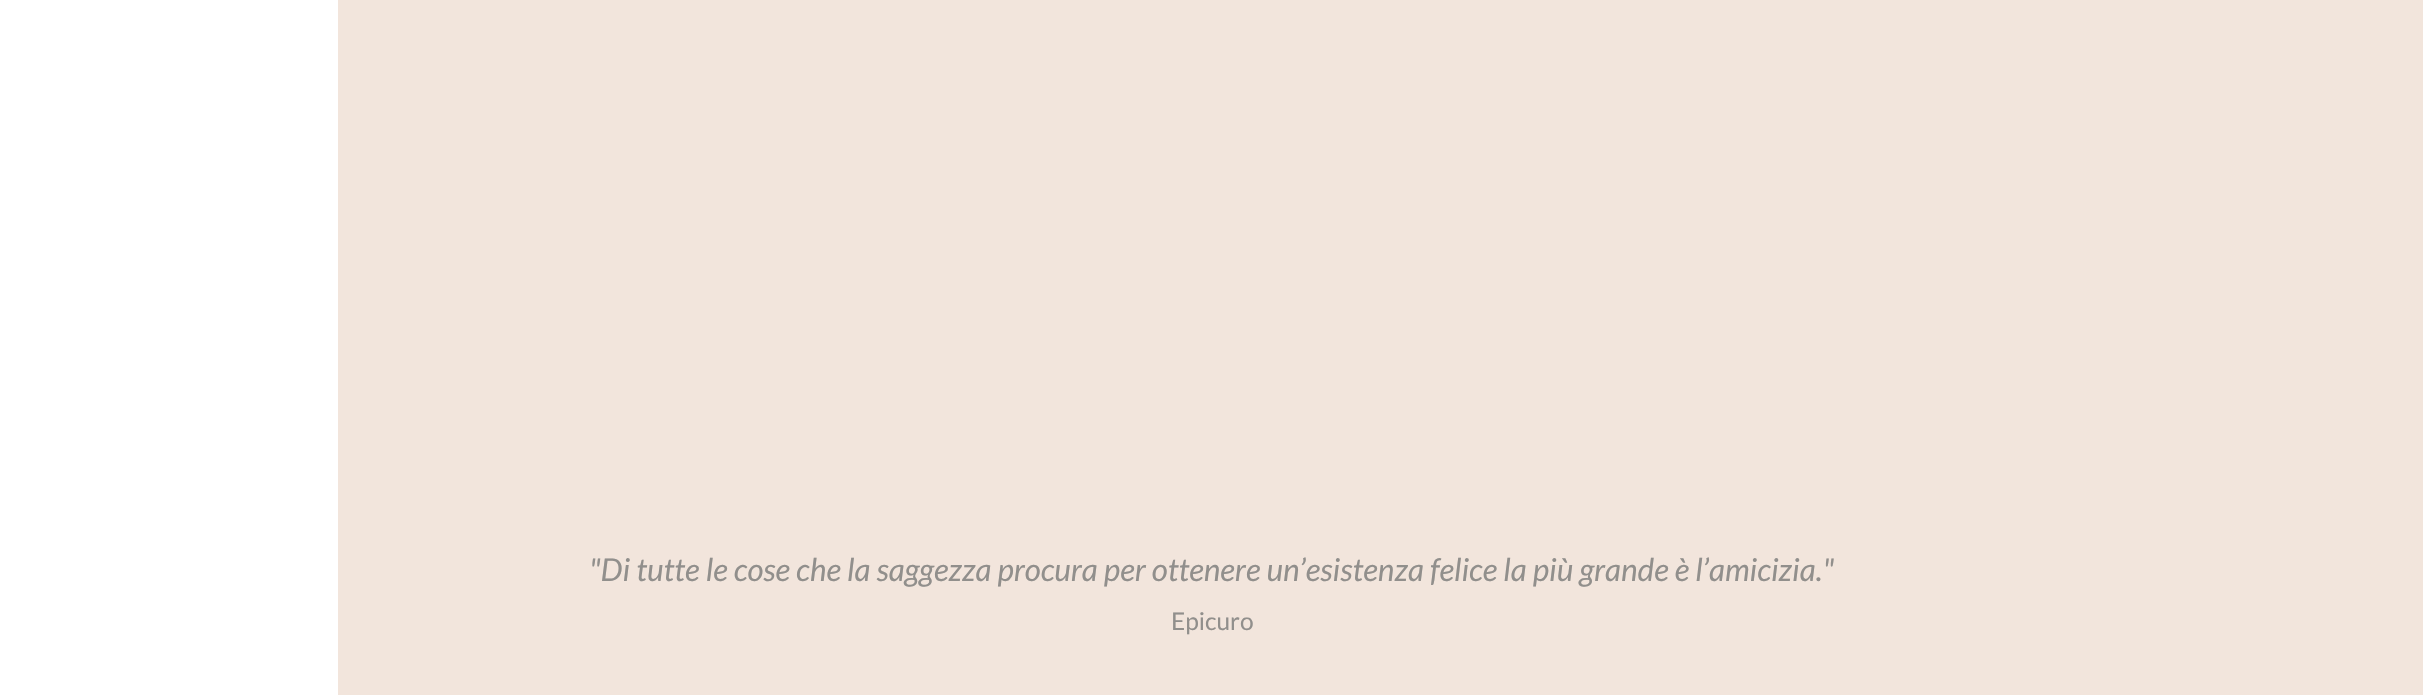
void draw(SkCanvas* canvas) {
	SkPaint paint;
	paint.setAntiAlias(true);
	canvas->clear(0xffffffff);
	paint.setColor(0xfff2e5dc);
	canvas->drawRect(SkRect::MakeXYWH(338, 0, 2085, 695), paint);
	SkFont f1(fontMgr->matchFamilyStyle("Lato", SkFontStyle::Italic()), 31.5);
	f1.setSubpixel(true);
	paint.setColor(0xff918f8c);
	canvas->drawString("\"Di tutte le cose che la saggezza procura per ottenere un’esistenza felice la più grande è l’amicizia.\"", 589, 581, f1, paint);
	SkFont f2(fontMgr->matchFamilyStyle("Lato", SkFontStyle::Normal()), 24.5);
	f2.setSubpixel(true);
	canvas->drawString("Epicuro", 1171, 630, f2, paint);
}
